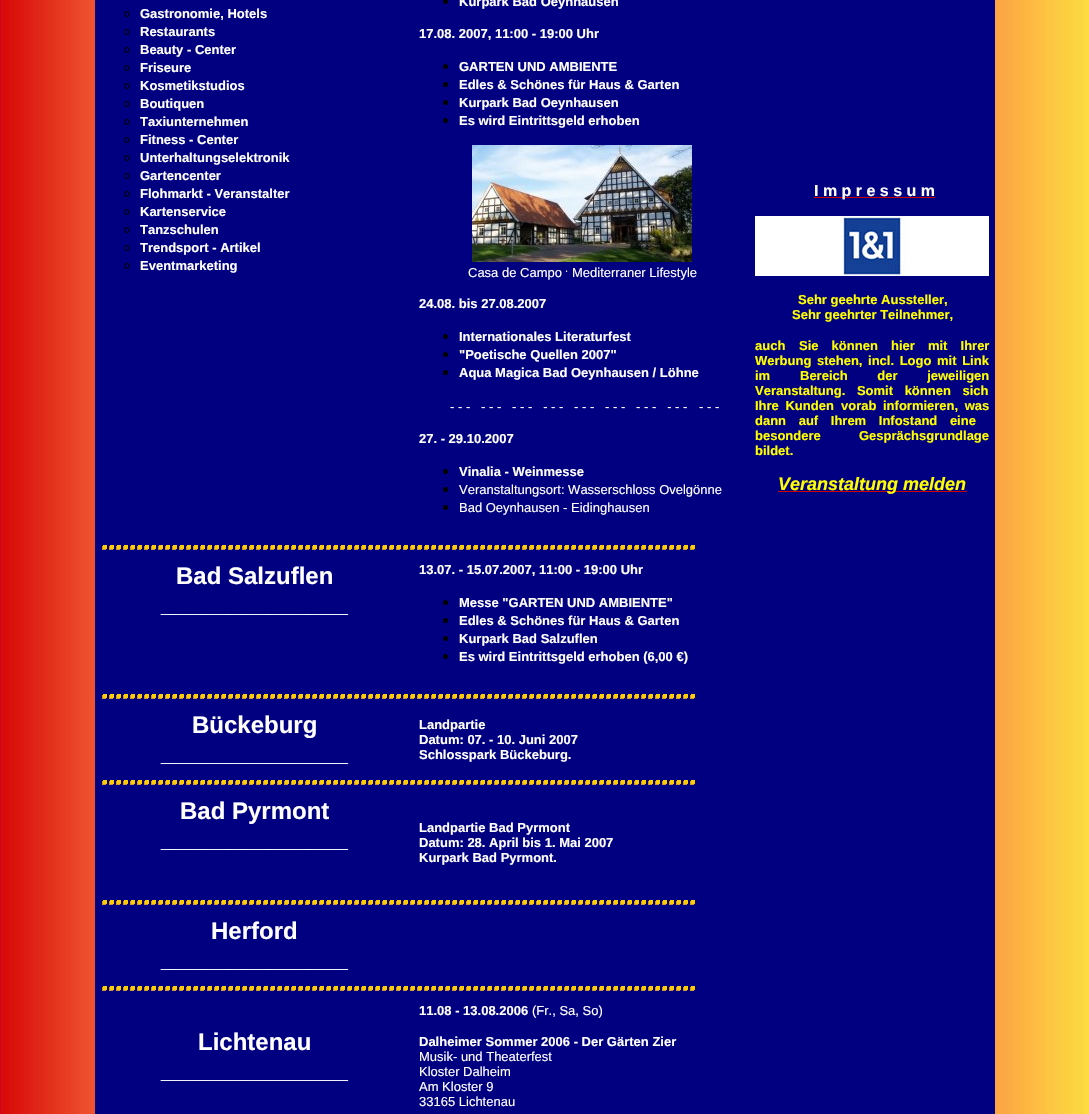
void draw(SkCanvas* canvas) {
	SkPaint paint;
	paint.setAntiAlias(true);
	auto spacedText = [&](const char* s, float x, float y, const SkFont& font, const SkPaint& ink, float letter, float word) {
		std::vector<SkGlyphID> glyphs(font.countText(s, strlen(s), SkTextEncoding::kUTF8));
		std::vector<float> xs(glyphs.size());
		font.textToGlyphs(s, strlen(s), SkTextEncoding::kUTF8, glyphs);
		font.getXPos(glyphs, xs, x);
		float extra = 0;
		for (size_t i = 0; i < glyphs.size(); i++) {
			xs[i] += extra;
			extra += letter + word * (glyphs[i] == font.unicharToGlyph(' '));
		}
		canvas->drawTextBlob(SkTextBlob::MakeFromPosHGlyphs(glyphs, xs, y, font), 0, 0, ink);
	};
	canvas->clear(0xffffffff);
	canvas->drawImageRect(SkImages::DeferredFromEncodedData(SkData::MakeFromFileName("img1.png")), SkRect::MakeXYWH(0, 0, 1089, 1114), SkSamplingOptions());
	paint.setColor(0xff000080);
	canvas->drawRect(SkRect::MakeXYWH(95, 0, 900, 1114), paint);
	paint.setStroke(true);
	paint.setStrokeWidth(1);
	paint.setColor(0xff000000);
	canvas->drawCircle(127, 14, 2.5, paint);
	SkFont f1(fontMgr->matchFamilyStyle("Liberation Sans", SkFontStyle::Bold()), 13);
	f1.setSubpixel(true);
	paint.setStroke(false);
	paint.setColor(0xffffffff);
	canvas->drawString("Gastronomie, Hotels", 140, 18, f1, paint);
	paint.setStroke(true);
	paint.setColor(0xff000000);
	canvas->drawCircle(127, 32, 2.5, paint);
	paint.setStroke(false);
	paint.setColor(0xffffffff);
	canvas->drawString("Restaurants", 140, 36, f1, paint);
	paint.setStroke(true);
	paint.setColor(0xff000000);
	canvas->drawCircle(127, 50, 2.5, paint);
	paint.setStroke(false);
	paint.setColor(0xffffffff);
	canvas->drawString("Beauty - Center", 140, 54, f1, paint);
	paint.setStroke(true);
	paint.setColor(0xff000000);
	canvas->drawCircle(127, 68, 2.5, paint);
	paint.setStroke(false);
	paint.setColor(0xffffffff);
	canvas->drawString("Friseure", 140, 72, f1, paint);
	paint.setStroke(true);
	paint.setColor(0xff000000);
	canvas->drawCircle(127, 86, 2.5, paint);
	paint.setStroke(false);
	paint.setColor(0xffffffff);
	canvas->drawString("Kosmetikstudios", 140, 90, f1, paint);
	paint.setStroke(true);
	paint.setColor(0xff000000);
	canvas->drawCircle(127, 104, 2.5, paint);
	paint.setStroke(false);
	paint.setColor(0xffffffff);
	canvas->drawString("Boutiquen", 140, 108, f1, paint);
	paint.setStroke(true);
	paint.setColor(0xff000000);
	canvas->drawCircle(127, 122, 2.5, paint);
	paint.setStroke(false);
	paint.setColor(0xffffffff);
	canvas->drawString("Taxiunternehmen", 140, 126, f1, paint);
	paint.setStroke(true);
	paint.setColor(0xff000000);
	canvas->drawCircle(127, 140, 2.5, paint);
	paint.setStroke(false);
	paint.setColor(0xffffffff);
	canvas->drawString("Fitness - Center", 140, 144, f1, paint);
	paint.setStroke(true);
	paint.setColor(0xff000000);
	canvas->drawCircle(127, 158, 2.5, paint);
	paint.setStroke(false);
	paint.setColor(0xffffffff);
	canvas->drawString("Unterhaltungselektronik", 140, 162, f1, paint);
	paint.setStroke(true);
	paint.setColor(0xff000000);
	canvas->drawCircle(127, 176, 2.5, paint);
	paint.setStroke(false);
	paint.setColor(0xffffffff);
	canvas->drawString("Gartencenter", 140, 180, f1, paint);
	paint.setStroke(true);
	paint.setColor(0xff000000);
	canvas->drawCircle(127, 194, 2.5, paint);
	paint.setStroke(false);
	paint.setColor(0xffffffff);
	canvas->drawString("Flohmarkt - Veranstalter", 140, 198, f1, paint);
	paint.setStroke(true);
	paint.setColor(0xff000000);
	canvas->drawCircle(127, 212, 2.5, paint);
	paint.setStroke(false);
	paint.setColor(0xffffffff);
	canvas->drawString("Kartenservice", 140, 216, f1, paint);
	paint.setStroke(true);
	paint.setColor(0xff000000);
	canvas->drawCircle(127, 230, 2.5, paint);
	paint.setStroke(false);
	paint.setColor(0xffffffff);
	canvas->drawString("Tanzschulen", 140, 234, f1, paint);
	paint.setStroke(true);
	paint.setColor(0xff000000);
	canvas->drawCircle(127, 248, 2.5, paint);
	paint.setStroke(false);
	paint.setColor(0xffffffff);
	canvas->drawString("Trendsport - Artikel", 140, 252, f1, paint);
	paint.setStroke(true);
	paint.setColor(0xff000000);
	canvas->drawCircle(127, 266, 2.5, paint);
	paint.setStroke(false);
	paint.setColor(0xffffffff);
	canvas->drawString("Eventmarketing", 140, 270, f1, paint);
	paint.setColor(0xff000000);
	canvas->drawCircle(445.5, 1.5, 2.5, paint);
	paint.setColor(0xffffffff);
	canvas->drawString("Kurpark Bad Oeynhausen", 459, 6, f1, paint);
	canvas->drawString("17.08. 2007, 11:00 - 19:00 Uhr", 419, 38, f1, paint);
	paint.setColor(0xff000000);
	canvas->drawCircle(445.5, 66.5, 2.5, paint);
	paint.setColor(0xffffffff);
	canvas->drawString("GARTEN UND AMBIENTE", 459, 71, f1, paint);
	paint.setColor(0xff000000);
	canvas->drawCircle(445.5, 84.5, 2.5, paint);
	paint.setColor(0xffffffff);
	canvas->drawString("Edles & Schönes für Haus & Garten", 459, 89, f1, paint);
	paint.setColor(0xff000000);
	canvas->drawCircle(445.5, 102.5, 2.5, paint);
	paint.setColor(0xffffffff);
	canvas->drawString("Kurpark Bad Oeynhausen", 459, 107, f1, paint);
	paint.setColor(0xff000000);
	canvas->drawCircle(445.5, 120.5, 2.5, paint);
	paint.setColor(0xffffffff);
	canvas->drawString("Es wird Eintrittsgeld erhoben", 459, 125, f1, paint);
	canvas->drawImageRect(SkImages::DeferredFromEncodedData(SkData::MakeFromFileName("img2.png")), SkRect::MakeXYWH(472, 145, 220, 117), SkSamplingOptions());
	SkFont f2(fontMgr->matchFamilyStyle("Liberation Sans", SkFontStyle::Normal()), 13);
	f2.setSubpixel(true);
	canvas->drawString("Casa de Campo", 468, 277, f2, paint);
	SkFont f3(fontMgr->matchFamilyStyle("Liberation Sans", SkFontStyle::Normal()), 11);
	f3.setSubpixel(true);
	canvas->drawString(".", 565, 272, f3, paint);
	canvas->drawString("Mediterraner Lifestyle", 572, 277, f2, paint);
	canvas->drawString("24.08. bis 27.08.2007", 419, 308, f1, paint);
	paint.setColor(0xff000000);
	canvas->drawCircle(445.5, 336.5, 2.5, paint);
	paint.setColor(0xffffffff);
	canvas->drawString("Internationales Literaturfest", 459, 341, f1, paint);
	paint.setColor(0xff000000);
	canvas->drawCircle(445.5, 354.5, 2.5, paint);
	paint.setColor(0xffffffff);
	canvas->drawString("\"Poetische Quellen 2007\"", 459, 359, f1, paint);
	paint.setColor(0xff000000);
	canvas->drawCircle(445.5, 372.5, 2.5, paint);
	paint.setColor(0xffffffff);
	canvas->drawString("Aqua Magica Bad Oeynhausen / Löhne", 459, 377, f1, paint);
	canvas->drawString("- - -   - - -   - - -   - - -", 450, 411, f2, paint);
	canvas->drawString("- - -   - - -   - - -   - - -", 574, 411, f2, paint);
	canvas->drawString("- - -", 699, 411, f2, paint);
	canvas->drawString("27. - 29.10.2007", 419, 443, f1, paint);
	paint.setColor(0xff000000);
	canvas->drawCircle(445.5, 471.5, 2.5, paint);
	paint.setColor(0xffffffff);
	canvas->drawString("Vinalia - Weinmesse", 459, 476, f1, paint);
	paint.setColor(0xff000000);
	canvas->drawCircle(445.5, 489.5, 2.5, paint);
	paint.setColor(0xffffffff);
	canvas->drawString("Veranstaltungsort: Wasserschloss Ovelgönne", 459, 494, f2, paint);
	paint.setColor(0xff000000);
	canvas->drawCircle(445.5, 507.5, 2.5, paint);
	paint.setColor(0xffffffff);
	canvas->drawString("Bad Oeynhausen - Eidinghausen", 459, 512, f2, paint);
	paint.setColor(0xffcc0000);
	canvas->drawRect(SkRect::MakeXYWH(814, 197, 121, 1), paint);
	SkFont f4(fontMgr->matchFamilyStyle("Liberation Sans", SkFontStyle::Bold()), 16);
	f4.setSubpixel(true);
	paint.setColor(0xffffffff);
	canvas->drawString("I m p r e s s u m", 814, 196, f4, paint);
	canvas->drawImageRect(SkImages::DeferredFromEncodedData(SkData::MakeFromFileName("img3.png")), SkRect::MakeXYWH(755, 216, 234, 60), SkSamplingOptions());
	paint.setColor(0xffffff00);
	canvas->drawString("Sehr geehrte Aussteller,", 798, 304, f1, paint);
	canvas->drawString("Sehr geehrter Teilnehmer,", 792, 319, f1, paint);
	canvas->drawString("auch", 755, 350, f1, paint);
	spacedText("Sie können hier mit Ihrer", 799, 350, f1, paint, 0, 9.5);
	spacedText("Werbung stehen, incl. Logo mit Link", 755, 365, f1, paint, 0, 2);
	canvas->drawString("im", 755, 380, f1, paint);
	spacedText("Bereich der jeweiligen", 800, 380, f1, paint, 0, 26);
	spacedText("Veranstaltung. Somit können sich", 755, 395, f1, paint, 0, 8);
	spacedText("Ihre Kunden", 755, 410, f1, paint, 0, 3);
	spacedText("vorab informieren, was", 841, 410, f1, paint, 0, 3);
	spacedText("dann auf Ihrem Infostand eine", 755, 425, f1, paint, 0, 9);
	canvas->drawString("besondere", 755, 440, f1, paint);
	canvas->drawString("Gesprächsgrundlage", 859, 440, f1, paint);
	canvas->drawString("bildet.", 755, 455, f1, paint);
	paint.setColor(0xffcc0000);
	canvas->drawRect(SkRect::MakeXYWH(778, 491, 189, 1), paint);
	SkFont f5(fontMgr->matchFamilyStyle("Liberation Sans", SkFontStyle::BoldItalic()), 18);
	f5.setSubpixel(true);
	paint.setColor(0xffffff00);
	canvas->drawString("Veranstaltung melden", 778, 490, f5, paint);
	canvas->drawImageRect(SkImages::DeferredFromEncodedData(SkData::MakeFromFileName("img4.png")), SkRect::MakeXYWH(102, 545, 593, 5), SkSamplingOptions());
	SkFont f6(fontMgr->matchFamilyStyle("Liberation Sans", SkFontStyle::Bold()), 24);
	f6.setSubpixel(true);
	paint.setColor(0xffffffff);
	canvas->drawString("Bad Salzuflen", 176, 584, f6, paint);
	canvas->drawString("______________", 161, 612, f6, paint);
	canvas->drawString("13.07. - 15.07.2007, 11:00 - 19:00 Uhr", 419, 574, f1, paint);
	paint.setColor(0xff000000);
	canvas->drawCircle(445.5, 602.5, 2.5, paint);
	paint.setColor(0xffffffff);
	canvas->drawString("Messe \"GARTEN UND AMBIENTE\"", 459, 607, f1, paint);
	paint.setColor(0xff000000);
	canvas->drawCircle(445.5, 620.5, 2.5, paint);
	paint.setColor(0xffffffff);
	canvas->drawString("Edles & Schönes für Haus & Garten", 459, 625, f1, paint);
	paint.setColor(0xff000000);
	canvas->drawCircle(445.5, 638.5, 2.5, paint);
	paint.setColor(0xffffffff);
	canvas->drawString("Kurpark Bad Salzuflen", 459, 643, f1, paint);
	paint.setColor(0xff000000);
	canvas->drawCircle(445.5, 656.5, 2.5, paint);
	paint.setColor(0xffffffff);
	canvas->drawString("Es wird Eintrittsgeld erhoben (6,00 €)", 459, 661, f1, paint);
	canvas->drawImageRect(SkImages::DeferredFromEncodedData(SkData::MakeFromFileName("img4.png")), SkRect::MakeXYWH(102, 694, 593, 5), SkSamplingOptions());
	canvas->drawString("Bückeburg", 192, 733, f6, paint);
	canvas->drawString("______________", 161, 761, f6, paint);
	canvas->drawString("Landpartie", 419, 729, f1, paint);
	canvas->drawString("Datum: 07. - 10. Juni 2007", 419, 744, f1, paint);
	canvas->drawString("Schlosspark Bückeburg.", 419, 759, f1, paint);
	canvas->drawImageRect(SkImages::DeferredFromEncodedData(SkData::MakeFromFileName("img4.png")), SkRect::MakeXYWH(102, 780, 593, 5), SkSamplingOptions());
	canvas->drawString("Bad Pyrmont", 180, 819, f6, paint);
	canvas->drawString("______________", 161, 847, f6, paint);
	canvas->drawString("Landpartie Bad Pyrmont", 419, 832, f1, paint);
	canvas->drawString("Datum: 28. April bis 1. Mai 2007", 419, 847, f1, paint);
	canvas->drawString("Kurpark Bad Pyrmont.", 419, 862, f1, paint);
	canvas->drawImageRect(SkImages::DeferredFromEncodedData(SkData::MakeFromFileName("img4.png")), SkRect::MakeXYWH(102, 900, 593, 5), SkSamplingOptions());
	canvas->drawString("Herford", 211, 939, f6, paint);
	canvas->drawString("______________", 161, 967, f6, paint);
	canvas->drawImageRect(SkImages::DeferredFromEncodedData(SkData::MakeFromFileName("img4.png")), SkRect::MakeXYWH(102, 986, 593, 5), SkSamplingOptions());
	canvas->drawString("Lichtenau", 198, 1050, f6, paint);
	canvas->drawString("______________", 161, 1078, f6, paint);
	canvas->drawString("11.08 - 13.08.2006", 419, 1015, f1, paint);
	canvas->drawString("(Fr., Sa, So)", 532, 1015, f2, paint);
	canvas->drawString("Dalheimer Sommer 2006 - Der Gärten Zier", 419, 1046, f1, paint);
	canvas->drawString("Musik- und Theaterfest", 419, 1061, f2, paint);
	canvas->drawString("Kloster Dalheim", 419, 1076, f2, paint);
	canvas->drawString("Am Kloster 9", 419, 1091, f2, paint);
	canvas->drawString("33165 Lichtenau", 419, 1106, f2, paint);
}
